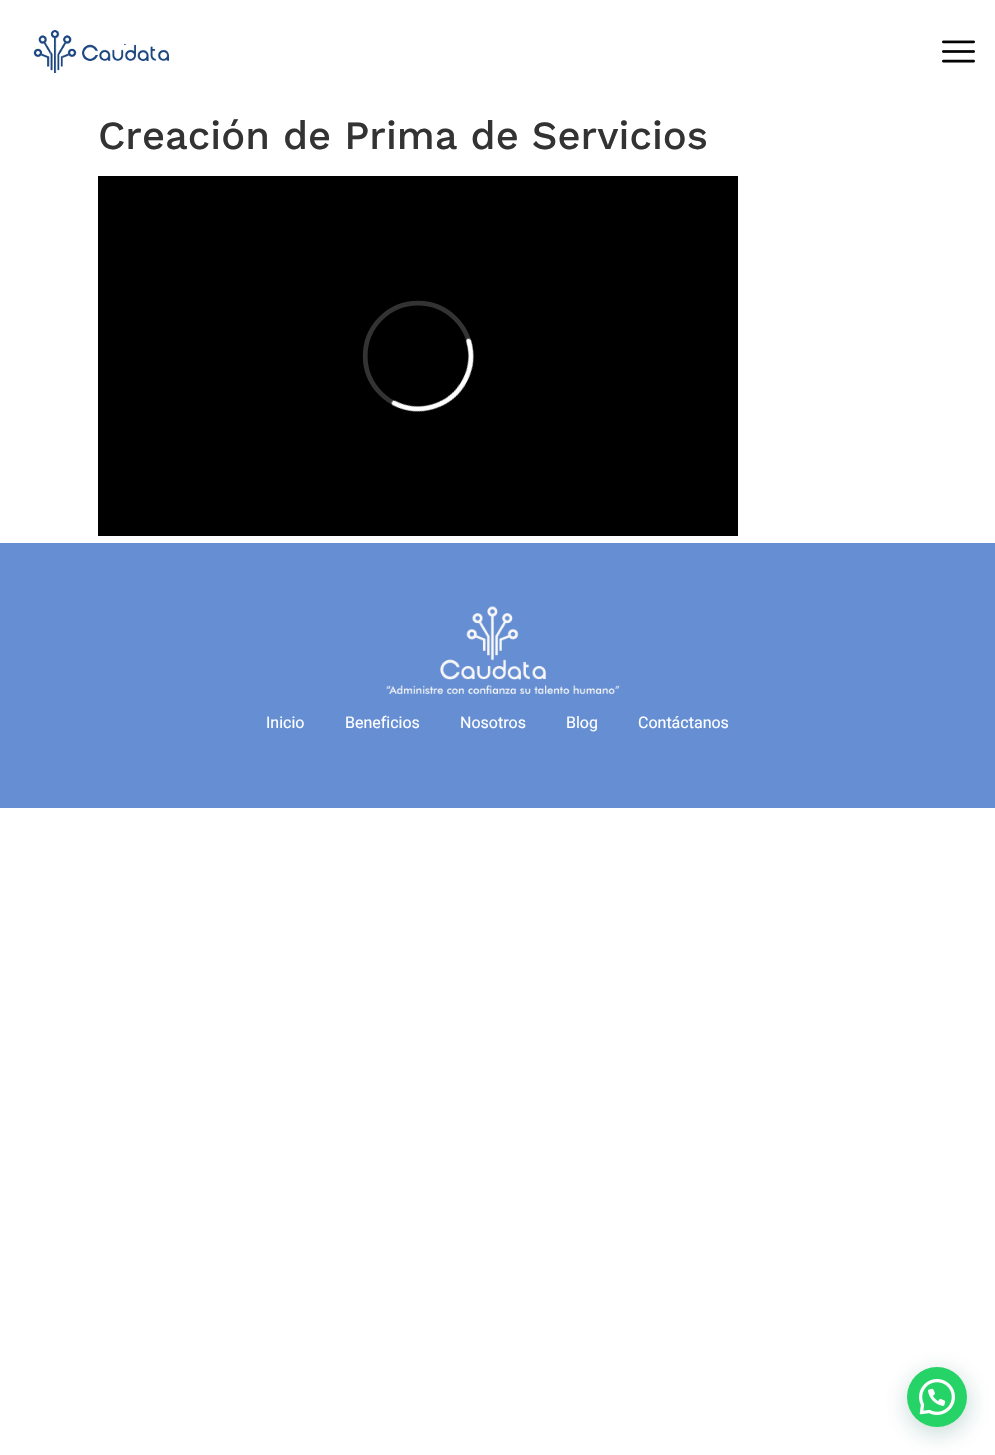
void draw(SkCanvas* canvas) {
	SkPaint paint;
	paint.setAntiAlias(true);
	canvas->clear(0xffffffff);
	canvas->drawImageRect(SkImages::DeferredFromEncodedData(SkData::MakeFromFileName("img1.png")), SkRect::MakeXYWH(33, 30, 136, 43), SkSamplingOptions());
	canvas->drawImageRect(SkImages::DeferredFromEncodedData(SkData::MakeFromFileName("img2.png")), SkRect::MakeXYWH(942, 40, 33, 23), SkSamplingOptions());
	SkFont f1(fontMgr->matchFamilyStyle("Work Sans", SkFontStyle(500, SkFontStyle::kNormal_Width, SkFontStyle::kUpright_Slant)), 40);
	f1.setSubpixel(true);
	paint.setColor(0xff333333);
	canvas->drawString("Creación de Prima de Servicios", 98, 149, f1, paint);
	canvas->drawImageRect(SkImages::DeferredFromEncodedData(SkData::MakeFromFileName("img3.png")), SkRect::MakeXYWH(98, 176, 640, 360), SkSamplingOptions());
	paint.setColor(0xff668ed2);
	canvas->drawRect(SkRect::MakeXYWH(0, 543, 995, 265), paint);
	canvas->drawImageRect(SkImages::DeferredFromEncodedData(SkData::MakeFromFileName("img4.png")), SkRect::MakeXYWH(386, 606, 234, 88), SkSamplingOptions());
	SkFont f2(fontMgr->matchFamilyStyle("Roboto", SkFontStyle::Normal()), 16);
	f2.setSubpixel(true);
	paint.setColor(0xffffffff);
	canvas->drawString("Inicio", 266, 728, f2, paint);
	canvas->drawString("Beneficios", 345, 728, f2, paint);
	canvas->drawString("Nosotros", 460, 728, f2, paint);
	canvas->drawString("Blog", 566, 728, f2, paint);
	canvas->drawString("Contáctanos", 638, 728, f2, paint);
	paint.setColor(0x3d075e54);
	paint.setMaskFilter(SkMaskFilter::MakeBlur(kNormal_SkBlurStyle, 12));
	canvas->drawRoundRect(SkRect::MakeXYWH(908, 1373, 60, 60), 30, 30, paint);
	paint.setMaskFilter(nullptr);
	paint.setColor(0xff25d366);
	canvas->drawCircle(937, 1397, 30, paint);
	canvas->drawImageRect(SkImages::DeferredFromEncodedData(SkData::MakeFromFileName("img5.png")), SkRect::MakeXYWH(919, 1379, 36, 36), SkSamplingOptions());
}
